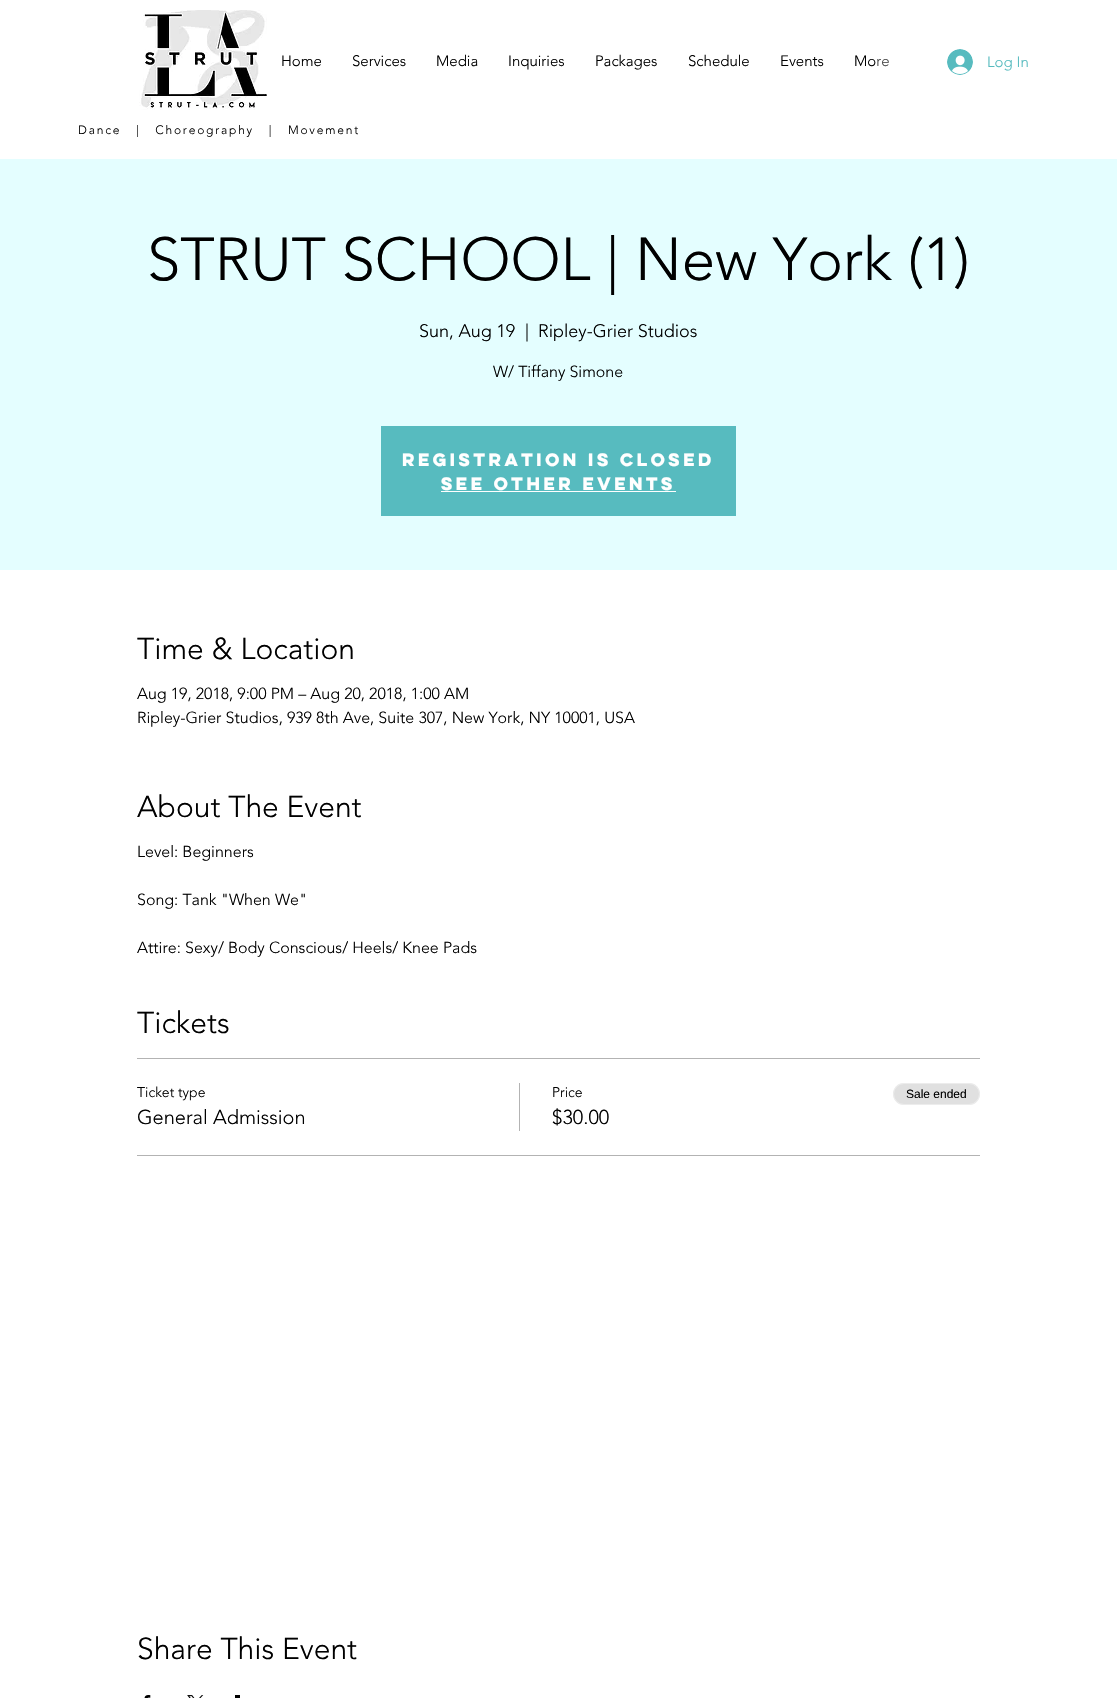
void draw(SkCanvas* canvas) {
	SkPaint paint;
	paint.setAntiAlias(true);
	auto spacedText = [&](const char* s, float x, float y, const SkFont& font, const SkPaint& ink, float letter, float word) {
		std::vector<SkGlyphID> glyphs(font.countText(s, strlen(s), SkTextEncoding::kUTF8));
		std::vector<float> xs(glyphs.size());
		font.textToGlyphs(s, strlen(s), SkTextEncoding::kUTF8, glyphs);
		font.getXPos(glyphs, xs, x);
		float extra = 0;
		for (size_t i = 0; i < glyphs.size(); i++) {
			xs[i] += extra;
			extra += letter + word * (glyphs[i] == font.unicharToGlyph(' '));
		}
		canvas->drawTextBlob(SkTextBlob::MakeFromPosHGlyphs(glyphs, xs, y, font), 0, 0, ink);
	};
	canvas->clear(0xffffffff);
	canvas->drawImageRect(SkImages::DeferredFromEncodedData(SkData::MakeFromFileName("img1.png")), SkRect::MakeXYWH(139, 10, 128, 100), SkSamplingOptions());
	SkFont f1(fontMgr->matchFamilyStyle("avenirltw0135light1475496", SkFontStyle(300, SkFontStyle::kNormal_Width, SkFontStyle::kUpright_Slant)), 15);
	f1.setSubpixel(true);
	paint.setColor(0xff000000);
	canvas->drawString("Home", 281, 66, f1, paint);
	canvas->drawString("Services", 352, 66, f1, paint);
	canvas->drawString("Media", 436, 66, f1, paint);
	canvas->drawString("Inquiries", 508, 66, f1, paint);
	canvas->drawString("Packages", 595, 66, f1, paint);
	canvas->drawString("Schedule", 688, 66, f1, paint);
	canvas->drawString("Events", 780, 66, f1, paint);
	canvas->drawString("More", 854, 66, f1, paint);
	paint.setColor(0x47ffffff);
	canvas->drawRect(SkRect::MakeXYWH(877, 58, 12, 9), paint);
	canvas->drawImageRect(SkImages::DeferredFromEncodedData(SkData::MakeFromFileName("img2.png")), SkRect::MakeXYWH(947, 49, 26, 26), SkSamplingOptions());
	paint.setColor(0xff57bbbf);
	canvas->drawString("Log In", 987, 67, f1, paint);
	SkFont f2(fontMgr->matchFamilyStyle("avenirltw0135light1475496", SkFontStyle(300, SkFontStyle::kNormal_Width, SkFontStyle::kUpright_Slant)), 12);
	f2.setSubpixel(true);
	paint.setColor(0xff000000);
	spacedText("Dance   |   Choreography   |   Movement", 78, 134, f2, paint, 1.8, 0);
	paint.setColor(0xffe4feff);
	canvas->drawRect(SkRect::MakeXYWH(0, 159, 1117, 411), paint);
	SkFont f3(fontMgr->matchFamilyStyle("avenirltw0135light1475496", SkFontStyle(300, SkFontStyle::kNormal_Width, SkFontStyle::kUpright_Slant)), 60);
	f3.setSubpixel(true);
	paint.setColor(0xff000000);
	canvas->drawString("STRUT SCHOOL | New York (1)", 147, 280, f3, paint);
	SkFont f4(fontMgr->matchFamilyStyle("avenirltw0135light1475496", SkFontStyle(300, SkFontStyle::kNormal_Width, SkFontStyle::kUpright_Slant)), 18);
	f4.setSubpixel(true);
	canvas->drawString("Sun, Aug 19", 419, 337, f4, paint);
	canvas->drawString("|", 525, 337, f4, paint);
	canvas->drawString("Ripley-Grier Studios", 538, 337, f4, paint);
	SkFont f5(fontMgr->matchFamilyStyle("avenirltw0135light1475496", SkFontStyle(300, SkFontStyle::kNormal_Width, SkFontStyle::kUpright_Slant)), 16);
	f5.setSubpixel(true);
	canvas->drawString("W/ Tiffany Simone", 493, 377, f5, paint);
	paint.setColor(0xff57bbbf);
	canvas->drawRect(SkRect::MakeXYWH(381, 426, 355, 90), paint);
	SkFont f6(fontMgr->matchFamilyStyle("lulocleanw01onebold", SkFontStyle::Bold()), 16);
	f6.setSubpixel(true);
	paint.setColor(0xffffffff);
	canvas->drawString("Registration is Closed", 402, 466, f6, paint);
	canvas->drawString("See other events", 441, 490, f6, paint);
	canvas->drawRect(SkRect::MakeXYWH(441, 491, 235, 1), paint);
	SkFont f7(fontMgr->matchFamilyStyle("avenirltw0135light1475496", SkFontStyle(300, SkFontStyle::kNormal_Width, SkFontStyle::kUpright_Slant)), 30);
	f7.setSubpixel(true);
	paint.setColor(0xff000000);
	canvas->drawString("Time & Location", 137, 659, f7, paint);
	canvas->drawString("Aug 19, 2018, 9:00 PM – Aug 20, 2018, 1:00 AM", 137, 699, f5, paint);
	canvas->drawString("Ripley-Grier Studios, 939 8th Ave, Suite 307, New York, NY 10001, USA", 137, 723, f5, paint);
	canvas->drawString("About The Event", 137, 817, f7, paint);
	canvas->drawString("Level: Beginners", 137, 857, f5, paint);
	canvas->drawString("Song: Tank \"When We\"", 137, 905, f5, paint);
	canvas->drawString("Attire: Sexy/ Body Conscious/ Heels/ Knee Pads", 137, 953, f5, paint);
	canvas->drawString("Tickets", 137, 1033, f7, paint);
	paint.setColor(0xffb3b3b3);
	canvas->drawRect(SkRect::MakeXYWH(137, 1058, 843, 1), paint);
	canvas->drawRect(SkRect::MakeXYWH(137, 1155, 843, 1), paint);
	SkFont f8(fontMgr->matchFamilyStyle("avenirltw0135light1475496", SkFontStyle(300, SkFontStyle::kNormal_Width, SkFontStyle::kUpright_Slant)), 14);
	f8.setSubpixel(true);
	paint.setColor(0xff000000);
	canvas->drawString("Ticket type", 137, 1097, f8, paint);
	SkFont f9(fontMgr->matchFamilyStyle("avenirltw0135light1475496", SkFontStyle(300, SkFontStyle::kNormal_Width, SkFontStyle::kUpright_Slant)), 20);
	f9.setSubpixel(true);
	canvas->drawString("General Admission", 137, 1124, f9, paint);
	paint.setColor(0xffb3b3b3);
	canvas->drawRect(SkRect::MakeXYWH(519, 1083, 1, 48), paint);
	paint.setColor(0xff000000);
	canvas->drawString("Price", 552, 1097, f8, paint);
	canvas->drawString("$30.00", 552, 1124, f9, paint);
	paint.setColor(0xffe0e0e0);
	canvas->drawRoundRect(SkRect::MakeXYWH(893, 1083, 87, 22), 11, 11, paint);
	paint.setStroke(true);
	paint.setStrokeWidth(1);
	paint.setColor(0x66ffffff);
	canvas->drawRoundRect(SkRect::MakeXYWH(893.5, 1083.5, 86, 21), 10.5, 10.5, paint);
	SkFont f10(fontMgr->matchFamilyStyle("Liberation Sans", SkFontStyle::Normal()), 12);
	f10.setSubpixel(true);
	paint.setStroke(false);
	paint.setColor(0xff000000);
	canvas->drawString("Sale ended", 906, 1098, f10, paint);
	canvas->drawString("Share This Event", 137, 1659, f7, paint);
	canvas->drawImageRect(SkImages::DeferredFromEncodedData(SkData::MakeFromFileName("img3.png")), SkRect::MakeXYWH(144, 1695, 7, 3), SkSamplingOptions());
	canvas->drawImageRect(SkImages::DeferredFromEncodedData(SkData::MakeFromFileName("img4.png")), SkRect::MakeXYWH(187, 1695, 17, 3), SkSamplingOptions());
	canvas->drawRect(SkRect::MakeXYWH(235, 1695, 5, 3), paint);
}
